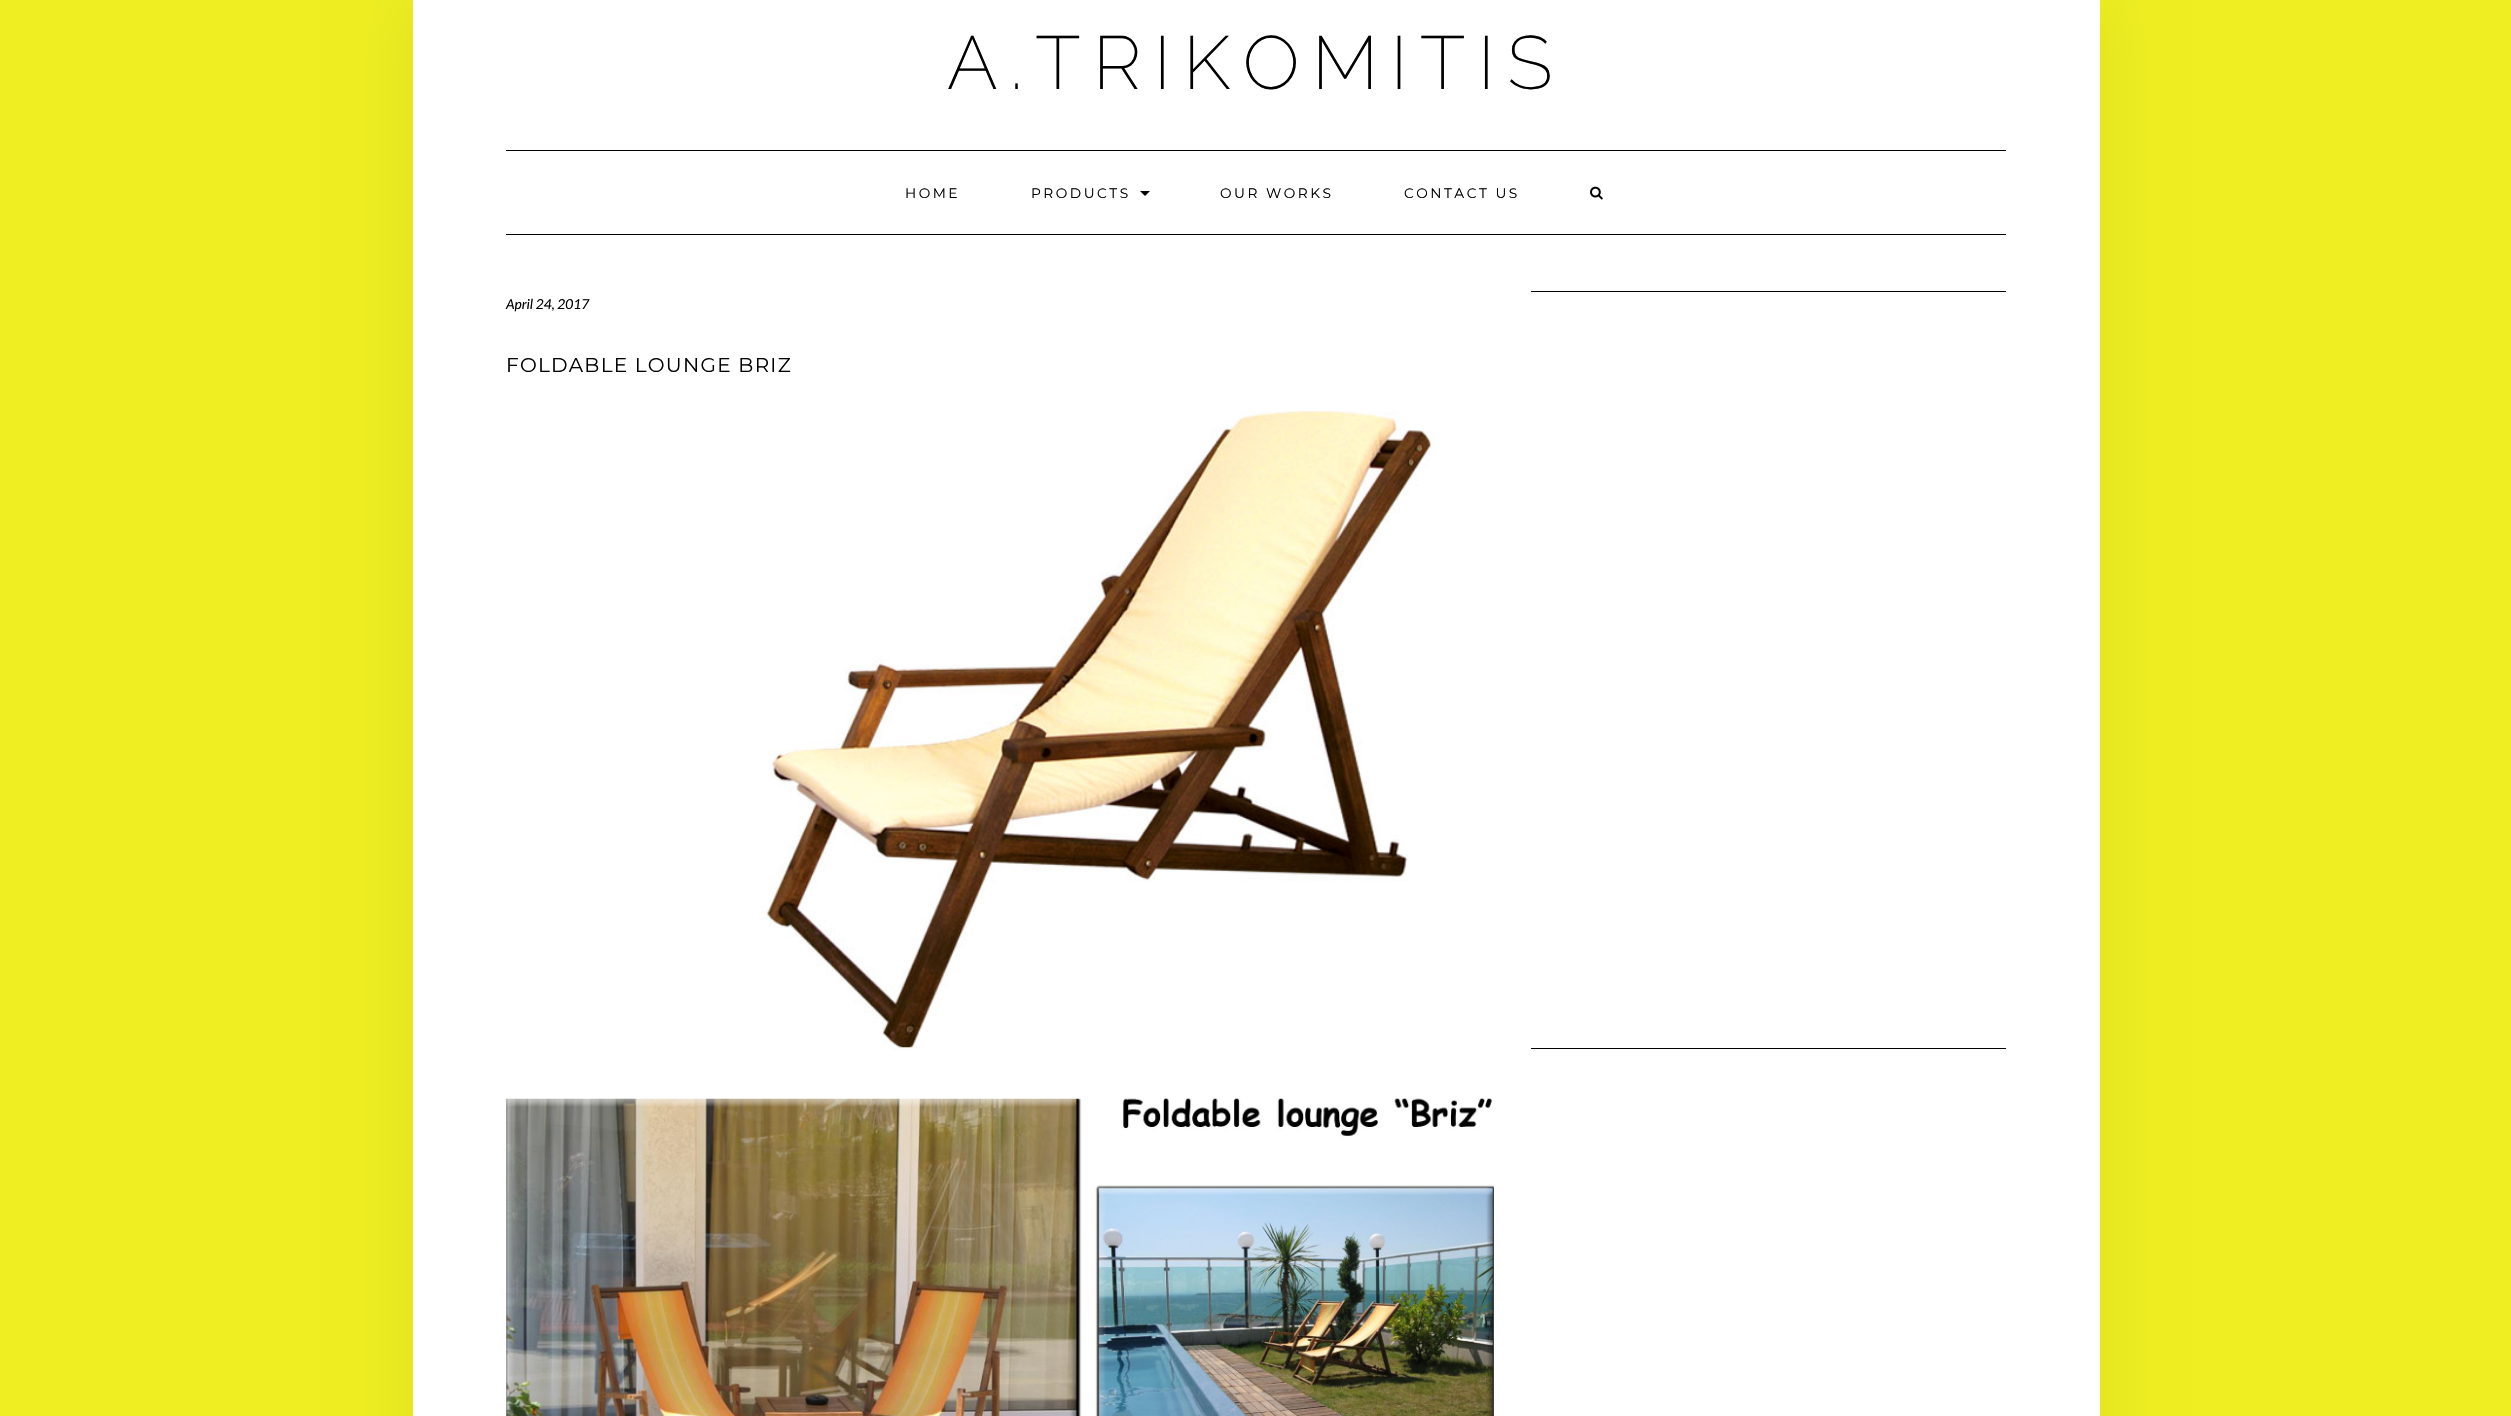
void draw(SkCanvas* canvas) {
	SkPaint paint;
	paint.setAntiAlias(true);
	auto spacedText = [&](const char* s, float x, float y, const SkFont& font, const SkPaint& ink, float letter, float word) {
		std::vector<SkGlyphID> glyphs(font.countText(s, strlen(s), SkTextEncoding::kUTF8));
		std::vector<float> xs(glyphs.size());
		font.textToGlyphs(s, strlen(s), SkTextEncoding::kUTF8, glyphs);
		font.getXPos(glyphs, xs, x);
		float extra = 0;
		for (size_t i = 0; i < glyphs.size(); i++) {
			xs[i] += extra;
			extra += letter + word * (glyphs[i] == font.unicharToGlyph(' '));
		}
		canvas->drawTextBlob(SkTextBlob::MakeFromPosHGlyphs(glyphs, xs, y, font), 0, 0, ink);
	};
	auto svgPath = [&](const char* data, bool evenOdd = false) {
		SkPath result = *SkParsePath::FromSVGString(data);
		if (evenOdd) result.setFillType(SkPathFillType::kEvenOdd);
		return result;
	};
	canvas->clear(0xffeeee22);
	paint.setColor(0x0f000000);
	paint.setMaskFilter(SkMaskFilter::MakeBlur(kNormal_SkBlurStyle, 31));
	canvas->drawRect(SkRect::MakeXYWH(413, 0, 1687, 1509), paint);
	paint.setMaskFilter(nullptr);
	paint.setColor(0xffffffff);
	canvas->drawRect(SkRect::MakeXYWH(413, 0, 1687, 1416), paint);
	SkFont f1(fontMgr->matchFamilyStyle("Raleway", SkFontStyle(100, SkFontStyle::kNormal_Width, SkFontStyle::kUpright_Slant)), 75);
	f1.setSubpixel(true);
	paint.setColor(0xff000000);
	spacedText("A.TRIKOMITIS", 947, 89, f1, paint, 12.5, 0);
	canvas->drawRect(SkRect::MakeXYWH(506, 150, 1500, 1), paint);
	canvas->drawRect(SkRect::MakeXYWH(506, 234, 1500, 1), paint);
	SkFont f2(fontMgr->matchFamilyStyle("Montserrat", SkFontStyle::Normal()), 13.75);
	f2.setSubpixel(true);
	spacedText("HOME", 905, 198, f2, paint, 2.5, 0);
	spacedText("PRODUCTS", 1031, 198, f2, paint, 2.5, 0);
	canvas->drawPath(svgPath("M1140 191H1150L1145 196Z"), paint);
	spacedText("OUR WORKS", 1220, 198, f2, paint, 2.5, 0);
	spacedText("CONTACT US", 1404, 198, f2, paint, 2.5, 0);
	canvas->drawImageRect(SkImages::DeferredFromEncodedData(SkData::MakeFromFileName("img1.png")), SkRect::MakeXYWH(1590, 186, 13, 14), SkSamplingOptions());
	SkFont f3(fontMgr->matchFamilyStyle("Lato", SkFontStyle::Italic()), 13.75);
	f3.setSubpixel(true);
	canvas->drawString("April 24, 2017", 506, 309, f3, paint);
	SkFont f4(fontMgr->matchFamilyStyle("Montserrat", SkFontStyle::Normal()), 20);
	f4.setSubpixel(true);
	spacedText("FOLDABLE LOUNGE BRIZ", 506, 372, f4, paint, 1.25, 0);
	canvas->drawImageRect(SkImages::DeferredFromEncodedData(SkData::MakeFromFileName("img2.png")), SkRect::MakeXYWH(761, 411, 674, 640), SkSamplingOptions());
	canvas->drawImageRect(SkImages::DeferredFromEncodedData(SkData::MakeFromFileName("img3.png")), SkRect::MakeXYWH(506, 1098, 988, 318), SkSamplingOptions());
	canvas->drawRect(SkRect::MakeXYWH(1531, 291, 475, 1), paint);
	canvas->drawRect(SkRect::MakeXYWH(1531, 1048, 475, 1), paint);
}
